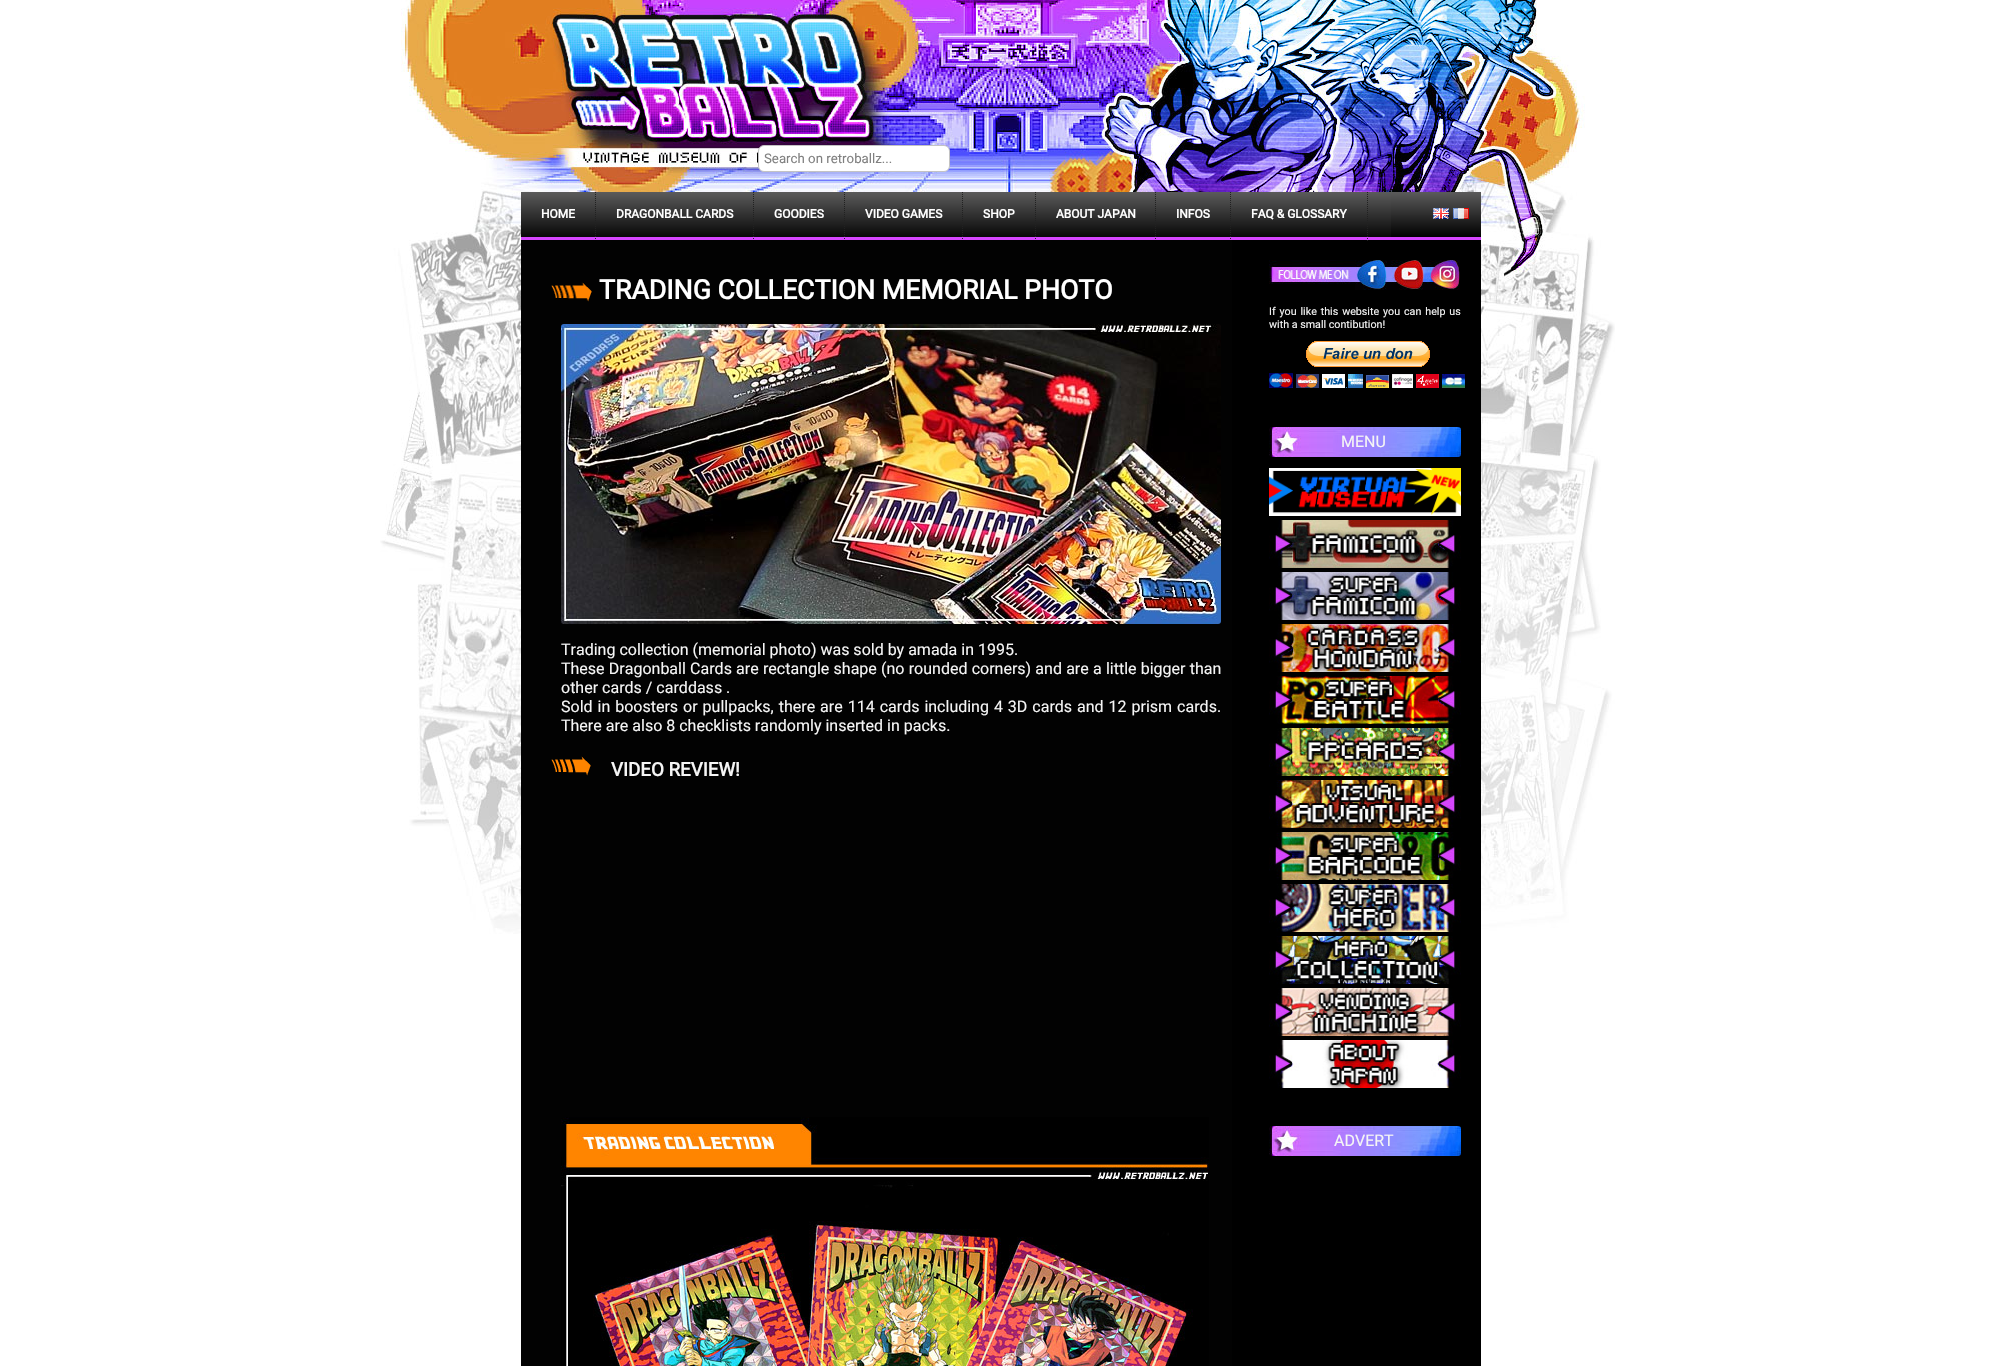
void draw(SkCanvas* canvas) {
	SkPaint paint;
	paint.setAntiAlias(true);
	auto spacedText = [&](const char* s, float x, float y, const SkFont& font, const SkPaint& ink, float letter, float word) {
		std::vector<SkGlyphID> glyphs(font.countText(s, strlen(s), SkTextEncoding::kUTF8));
		std::vector<float> xs(glyphs.size());
		font.textToGlyphs(s, strlen(s), SkTextEncoding::kUTF8, glyphs);
		font.getXPos(glyphs, xs, x);
		float extra = 0;
		for (size_t i = 0; i < glyphs.size(); i++) {
			xs[i] += extra;
			extra += letter + word * (glyphs[i] == font.unicharToGlyph(' '));
		}
		canvas->drawTextBlob(SkTextBlob::MakeFromPosHGlyphs(glyphs, xs, y, font), 0, 0, ink);
	};
	auto svgPath = [&](const char* data, bool evenOdd = false) {
		SkPath result = *SkParsePath::FromSVGString(data);
		if (evenOdd) result.setFillType(SkPathFillType::kEvenOdd);
		return result;
	};
	canvas->clear(0xffffffff);
	canvas->drawImageRect(SkImages::DeferredFromEncodedData(SkData::MakeFromFileName("img1.png")), SkRect::MakeXYWH(380, 0, 1235, 934), SkSamplingOptions());
	paint.setColor(0xffffffff);
	canvas->drawRoundRect(SkRect::MakeXYWH(758.5, 145.5, 191, 26), 5.5, 5.5, paint);
	paint.setStroke(true);
	paint.setStrokeWidth(1);
	paint.setColor(0xffc3c3c3);
	canvas->drawRoundRect(SkRect::MakeXYWH(758.5, 145.5, 191, 26), 5.5, 5.5, paint);
	SkFont f1(fontMgr->matchFamilyStyle("Roboto", SkFontStyle::Normal()), 13.25);
	f1.setSubpixel(true);
	paint.setStroke(false);
	paint.setColor(0xff808080);
	canvas->drawString("Search on retroballz...", 764, 163, f1, paint);
	paint.setColor(0xff000000);
	canvas->drawRect(SkRect::MakeXYWH(1232, 240, 249, 1126), paint);
	{
		const SkColor colors[] = {0xff5b5b5b, 0xff000000};
		const float stops[] = {0, 1};
		const SkPoint ends[] = {{1001, 192}, {1001, 237}};
		paint.setShader(SkGradientShader::MakeLinear(ends, colors, stops, 2, SkTileMode::kClamp));
		paint.setAlpha(255);
	}
	canvas->drawRect(SkRect::MakeXYWH(1391, 192, 90, 45), paint);
	paint.setShader(nullptr);
	paint.setColor(0xffd646ff);
	canvas->drawRect(SkRect::MakeXYWH(521, 237, 960, 3), paint);
	{
		const SkColor colors[] = {0xff5b5b5b, 0xff000000};
		const float stops[] = {0, 1};
		const SkPoint ends[] = {{956, 192}, {956, 241}};
		paint.setShader(SkGradientShader::MakeLinear(ends, colors, stops, 2, SkTileMode::kClamp));
		paint.setAlpha(255);
	}
	canvas->drawRect(SkRect::MakeXYWH(521, 192, 870, 45), paint);
	paint.setStroke(true);
	paint.setShader(nullptr);
	paint.setColor(0xff212121);
	paint.setPathEffect(SkDashPathEffect::Make({{1, 1}}, 0));
	canvas->drawPath(svgPath("M595.5 192V241"), paint);
	paint.setPathEffect(nullptr);
	SkFont f2(fontMgr->matchFamilyStyle("Roboto", SkFontStyle::Bold()), 12);
	f2.setSubpixel(true);
	paint.setStroke(false);
	paint.setColor(0xffffffff);
	canvas->drawString("HOME", 541, 218, f2, paint);
	paint.setStroke(true);
	paint.setColor(0xff212121);
	paint.setPathEffect(SkDashPathEffect::Make({{1, 1}}, 0));
	canvas->drawPath(svgPath("M753.5 192V241"), paint);
	paint.setPathEffect(nullptr);
	paint.setStroke(false);
	paint.setColor(0xffffffff);
	canvas->drawString("DRAGONBALL CARDS", 616, 218, f2, paint);
	paint.setStroke(true);
	paint.setColor(0xff212121);
	paint.setPathEffect(SkDashPathEffect::Make({{1, 1}}, 0));
	canvas->drawPath(svgPath("M844.5 192V241"), paint);
	paint.setPathEffect(nullptr);
	paint.setStroke(false);
	paint.setColor(0xffffffff);
	canvas->drawString("GOODIES", 774, 218, f2, paint);
	paint.setStroke(true);
	paint.setColor(0xff212121);
	paint.setPathEffect(SkDashPathEffect::Make({{1, 1}}, 0));
	canvas->drawPath(svgPath("M962.5 192V241"), paint);
	paint.setPathEffect(nullptr);
	paint.setStroke(false);
	paint.setColor(0xffffffff);
	canvas->drawString("VIDEO GAMES", 865, 218, f2, paint);
	paint.setStroke(true);
	paint.setColor(0xff212121);
	paint.setPathEffect(SkDashPathEffect::Make({{1, 1}}, 0));
	canvas->drawPath(svgPath("M1035.5 192V241"), paint);
	paint.setPathEffect(nullptr);
	paint.setStroke(false);
	paint.setColor(0xffffffff);
	canvas->drawString("SHOP", 983, 218, f2, paint);
	paint.setStroke(true);
	paint.setColor(0xff212121);
	paint.setPathEffect(SkDashPathEffect::Make({{1, 1}}, 0));
	canvas->drawPath(svgPath("M1155.5 192V241"), paint);
	paint.setPathEffect(nullptr);
	paint.setStroke(false);
	paint.setColor(0xffffffff);
	canvas->drawString("ABOUT JAPAN", 1056, 218, f2, paint);
	paint.setStroke(true);
	paint.setColor(0xff212121);
	paint.setPathEffect(SkDashPathEffect::Make({{1, 1}}, 0));
	canvas->drawPath(svgPath("M1230.5 192V241"), paint);
	paint.setPathEffect(nullptr);
	paint.setStroke(false);
	paint.setColor(0xffffffff);
	canvas->drawString("INFOS", 1176, 218, f2, paint);
	paint.setStroke(true);
	paint.setColor(0xff212121);
	paint.setPathEffect(SkDashPathEffect::Make({{1, 1}}, 0));
	canvas->drawPath(svgPath("M1367.5 192V241"), paint);
	paint.setPathEffect(nullptr);
	paint.setStroke(false);
	paint.setColor(0xffffffff);
	canvas->drawString("FAQ & GLOSSARY", 1251, 218, f2, paint);
	canvas->drawImageRect(SkImages::DeferredFromEncodedData(SkData::MakeFromFileName("img2.png")), SkRect::MakeXYWH(1433, 208, 16, 11), SkSamplingOptions());
	canvas->drawImageRect(SkImages::DeferredFromEncodedData(SkData::MakeFromFileName("img3.png")), SkRect::MakeXYWH(1453, 208, 16, 11), SkSamplingOptions());
	paint.setColor(0xff020202);
	canvas->drawRect(SkRect::MakeXYWH(521, 240, 711, 1126), paint);
	canvas->drawImageRect(SkImages::DeferredFromEncodedData(SkData::MakeFromFileName("img4.png")), SkRect::MakeXYWH(551, 282, 41, 20), SkSamplingOptions());
	SkFont f3(fontMgr->matchFamilyStyle("Roboto", SkFontStyle::Bold()), 26.7);
	f3.setSubpixel(true);
	paint.setColor(0xffffffff);
	canvas->drawString("TRADING COLLECTION MEMORIAL PHOTO", 599, 299, f3, paint);
	canvas->drawImageRect(SkImages::DeferredFromEncodedData(SkData::MakeFromFileName("img5.png")), SkRect::MakeXYWH(561, 324, 660, 300), SkSamplingOptions());
	SkFont f4(fontMgr->matchFamilyStyle("Roboto", SkFontStyle::Normal()), 16);
	f4.setSubpixel(true);
	paint.setColor(0xfff5f5f5);
	canvas->drawString("Trading collection (memorial photo) was sold by amada in 1995.", 561, 655, f4, paint);
	spacedText("These Dragonball Cards are rectangle shape (no rounded corners) and are a little bigger than", 561, 674, f4, paint, 0, 0.25);
	canvas->drawString("other cards / carddass .", 561, 693, f4, paint);
	spacedText("Sold in boosters or pullpacks, there are 114 cards including 4 3D cards and 12 prism cards.", 561, 712, f4, paint, 0, 1);
	canvas->drawString("There are also 8 checklists randomly inserted in packs.", 561, 731, f4, paint);
	canvas->drawImageRect(SkImages::DeferredFromEncodedData(SkData::MakeFromFileName("img6.png")), SkRect::MakeXYWH(551, 756, 40, 20), SkSamplingOptions());
	SkFont f5(fontMgr->matchFamilyStyle("Roboto", SkFontStyle::Bold()), 18.75);
	f5.setSubpixel(true);
	canvas->drawString("VIDEO REVIEW!", 611, 776, f5, paint);
	canvas->drawImageRect(SkImages::DeferredFromEncodedData(SkData::MakeFromFileName("img7.png")), SkRect::MakeXYWH(561, 1117, 648, 249), SkSamplingOptions());
	canvas->drawImageRect(SkImages::DeferredFromEncodedData(SkData::MakeFromFileName("img8.png")), SkRect::MakeXYWH(1269, 260, 86, 24), SkSamplingOptions());
	canvas->drawImageRect(SkImages::DeferredFromEncodedData(SkData::MakeFromFileName("img9.png")), SkRect::MakeXYWH(1355, 260, 36, 30), SkSamplingOptions());
	canvas->drawImageRect(SkImages::DeferredFromEncodedData(SkData::MakeFromFileName("img10.png")), SkRect::MakeXYWH(1391, 260, 36, 30), SkSamplingOptions());
	canvas->drawImageRect(SkImages::DeferredFromEncodedData(SkData::MakeFromFileName("img11.png")), SkRect::MakeXYWH(1427, 260, 33, 30), SkSamplingOptions());
	SkFont f6(fontMgr->matchFamilyStyle("Roboto", SkFontStyle::Normal()), 10.7);
	f6.setSubpixel(true);
	spacedText("If you like this website you can help us", 1269, 315, f6, paint, 0, 1.25);
	canvas->drawString("with a small contibution!", 1269, 328, f6, paint);
	canvas->drawImageRect(SkImages::DeferredFromEncodedData(SkData::MakeFromFileName("img12.png")), SkRect::MakeXYWH(1269, 341, 196, 47), SkSamplingOptions());
	canvas->drawImageRect(SkImages::DeferredFromEncodedData(SkData::MakeFromFileName("img13.png")), SkRect::MakeXYWH(1269, 427, 192, 30), SkSamplingOptions());
	canvas->drawString("MENU", 1341, 447, f4, paint);
	canvas->drawImageRect(SkImages::DeferredFromEncodedData(SkData::MakeFromFileName("img14.png")), SkRect::MakeXYWH(1269, 468, 192, 48), SkSamplingOptions());
	canvas->drawImageRect(SkImages::DeferredFromEncodedData(SkData::MakeFromFileName("img15.png")), SkRect::MakeXYWH(1269, 520, 192, 48), SkSamplingOptions());
	canvas->drawImageRect(SkImages::DeferredFromEncodedData(SkData::MakeFromFileName("img16.png")), SkRect::MakeXYWH(1269, 572, 192, 48), SkSamplingOptions());
	canvas->drawImageRect(SkImages::DeferredFromEncodedData(SkData::MakeFromFileName("img17.png")), SkRect::MakeXYWH(1269, 624, 192, 48), SkSamplingOptions());
	canvas->drawImageRect(SkImages::DeferredFromEncodedData(SkData::MakeFromFileName("img18.png")), SkRect::MakeXYWH(1269, 676, 192, 48), SkSamplingOptions());
	canvas->drawImageRect(SkImages::DeferredFromEncodedData(SkData::MakeFromFileName("img19.png")), SkRect::MakeXYWH(1269, 728, 192, 48), SkSamplingOptions());
	canvas->drawImageRect(SkImages::DeferredFromEncodedData(SkData::MakeFromFileName("img20.png")), SkRect::MakeXYWH(1269, 780, 192, 48), SkSamplingOptions());
	canvas->drawImageRect(SkImages::DeferredFromEncodedData(SkData::MakeFromFileName("img21.png")), SkRect::MakeXYWH(1269, 832, 192, 48), SkSamplingOptions());
	canvas->drawImageRect(SkImages::DeferredFromEncodedData(SkData::MakeFromFileName("img22.png")), SkRect::MakeXYWH(1269, 884, 192, 48), SkSamplingOptions());
	canvas->drawImageRect(SkImages::DeferredFromEncodedData(SkData::MakeFromFileName("img23.png")), SkRect::MakeXYWH(1269, 936, 192, 48), SkSamplingOptions());
	canvas->drawImageRect(SkImages::DeferredFromEncodedData(SkData::MakeFromFileName("img24.png")), SkRect::MakeXYWH(1269, 988, 192, 48), SkSamplingOptions());
	canvas->drawImageRect(SkImages::DeferredFromEncodedData(SkData::MakeFromFileName("img25.png")), SkRect::MakeXYWH(1269, 1040, 192, 48), SkSamplingOptions());
	canvas->drawImageRect(SkImages::DeferredFromEncodedData(SkData::MakeFromFileName("img13.png")), SkRect::MakeXYWH(1269, 1126, 192, 30), SkSamplingOptions());
	canvas->drawString("ADVERT", 1334, 1146, f4, paint);
}
